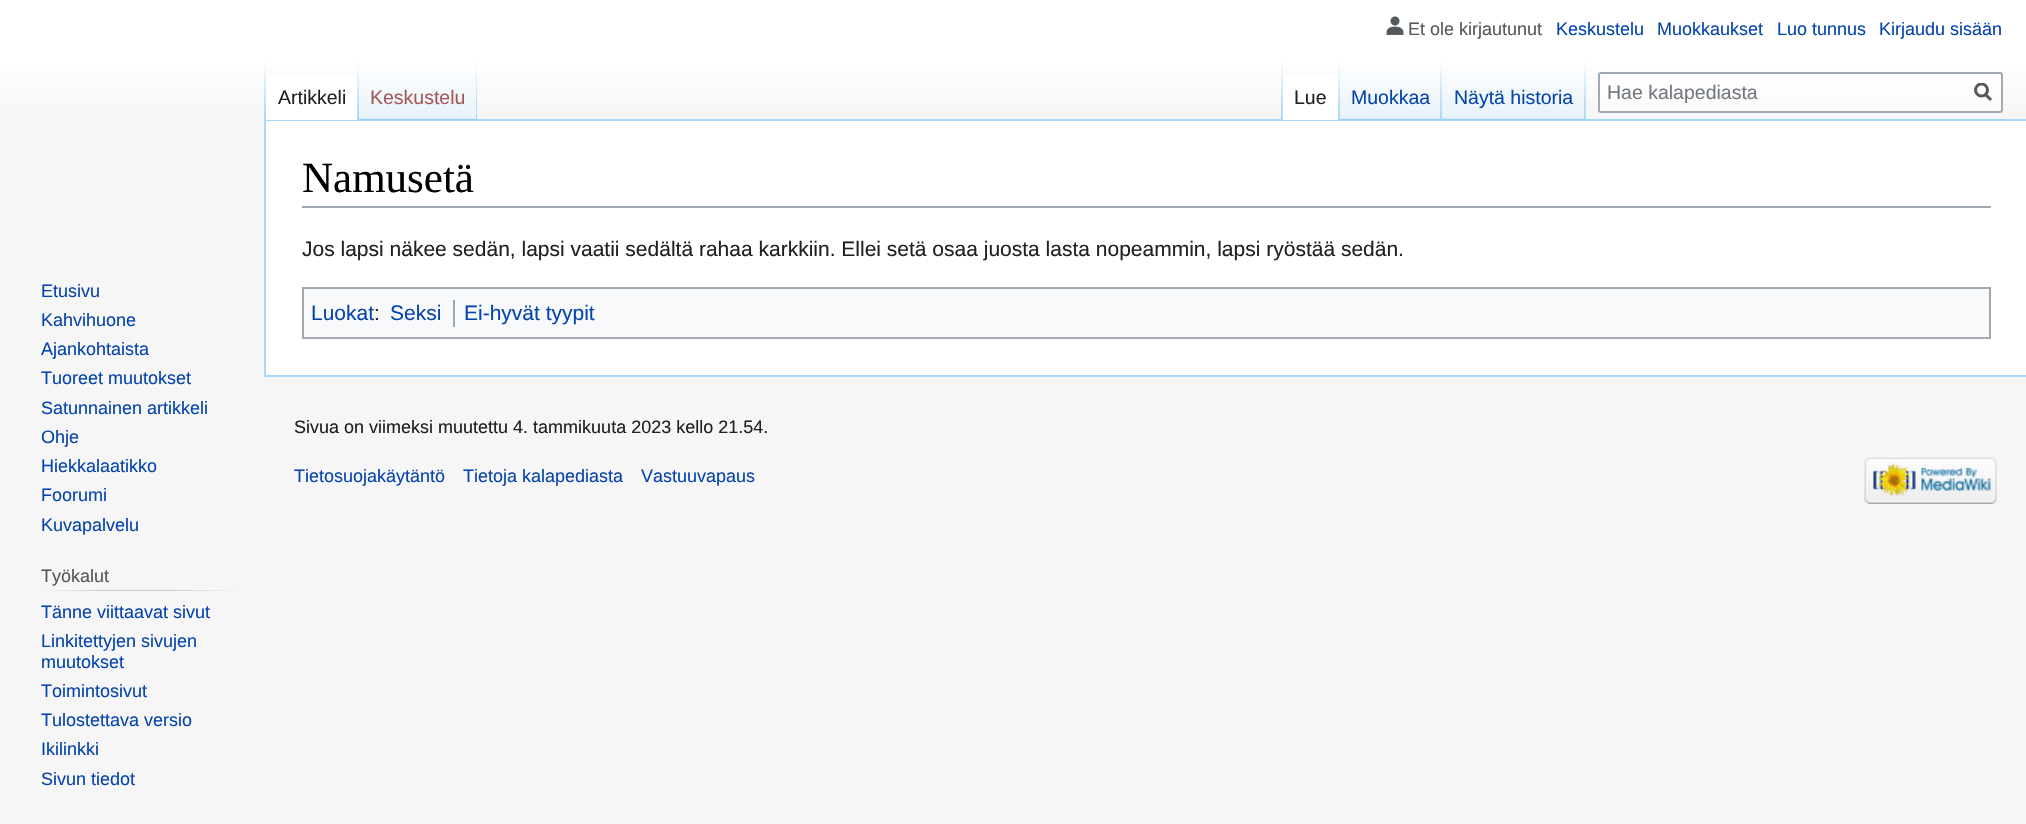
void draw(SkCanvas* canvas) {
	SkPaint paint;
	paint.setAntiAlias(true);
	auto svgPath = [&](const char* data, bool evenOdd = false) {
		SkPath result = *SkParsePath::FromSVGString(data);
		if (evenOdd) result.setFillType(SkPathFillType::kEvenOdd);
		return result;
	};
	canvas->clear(0xfff6f6f6);
	{
		const SkColor colors[] = {0xffffffff, 0xfff6f6f6};
		const float stops[] = {0.5, 1};
		const SkPoint ends[] = {{1013, 0}, {1013, 120}};
		paint.setShader(SkGradientShader::MakeLinear(ends, colors, stops, 2, SkTileMode::kClamp));
		paint.setAlpha(255);
	}
	canvas->drawRect(SkRect::MakeXYWH(0, 0, 2026, 103), paint);
	canvas->drawImageRect(SkImages::DeferredFromEncodedData(SkData::MakeFromFileName("img1.png")), SkRect::MakeXYWH(1386, 16, 18, 19), SkSamplingOptions());
	SkFont f1(fontMgr->matchFamilyStyle("Liberation Sans", SkFontStyle::Normal()), 18);
	f1.setSubpixel(true);
	paint.setShader(nullptr);
	paint.setColor(0xff54595d);
	canvas->drawString("Et ole kirjautunut", 1408, 35, f1, paint);
	paint.setColor(0xff0645ad);
	canvas->drawString("Keskustelu", 1556, 35, f1, paint);
	canvas->drawString("Muokkaukset", 1657, 35, f1, paint);
	canvas->drawString("Luo tunnus", 1777, 35, f1, paint);
	canvas->drawString("Kirjaudu sisään", 1879, 35, f1, paint);
	paint.setColor(0xffa7d7f9);
	canvas->drawRect(SkRect::MakeXYWH(264, 119, 1762, 2), paint);
	canvas->drawRect(SkRect::MakeXYWH(264, 375, 1762, 2), paint);
	canvas->drawRect(SkRect::MakeXYWH(264, 119, 2, 258), paint);
	{
		const SkColor colors[] = {0x00a7d7f9, 0xffa7d7f9};
		const float stops[] = {0, 1};
		const SkPoint ends[] = {{265, 60}, {265, 120}};
		paint.setShader(SkGradientShader::MakeLinear(ends, colors, stops, 2, SkTileMode::kClamp));
		paint.setAlpha(255);
	}
	canvas->drawRect(SkRect::MakeXYWH(264, 60, 2, 60), paint);
	paint.setShader(nullptr);
	paint.setColor(0xffffffff);
	canvas->drawRect(SkRect::MakeXYWH(266, 77, 91, 43), paint);
	{
		const SkColor colors[] = {0xffffffff, 0xffa7d7f9};
		const float stops[] = {0, 1};
		const SkPoint ends[] = {{358, 60}, {358, 120}};
		paint.setShader(SkGradientShader::MakeLinear(ends, colors, stops, 2, SkTileMode::kClamp));
		paint.setAlpha(255);
	}
	canvas->drawRect(SkRect::MakeXYWH(357, 60, 2, 60), paint);
	SkFont f2(fontMgr->matchFamilyStyle("Liberation Sans", SkFontStyle::Normal()), 19.5);
	f2.setSubpixel(true);
	paint.setShader(nullptr);
	paint.setColor(0xff202122);
	canvas->drawString("Artikkeli", 278, 104, f2, paint);
	{
		const SkColor colors[] = {0xff77c1f6, 0xffe8f2f8, 0xffffffff};
		const float stops[] = {0, 0.03, 1};
		const SkPoint ends[] = {{418, 120}, {418, 60}};
		paint.setShader(SkGradientShader::MakeLinear(ends, colors, stops, 3, SkTileMode::kClamp));
		paint.setAlpha(255);
	}
	canvas->drawRect(SkRect::MakeXYWH(359, 69, 118, 51), paint);
	{
		const SkColor colors[] = {0x00a7d7f9, 0xffa7d7f9};
		const float stops[] = {0, 1};
		const SkPoint ends[] = {{476, 60}, {476, 120}};
		paint.setShader(SkGradientShader::MakeLinear(ends, colors, stops, 2, SkTileMode::kClamp));
		paint.setAlpha(255);
	}
	canvas->drawRect(SkRect::MakeXYWH(476, 60, 1, 60), paint);
	paint.setShader(nullptr);
	paint.setColor(0xffa55858);
	canvas->drawString("Keskustelu", 370, 104, f2, paint);
	{
		const SkColor colors[] = {0x00a7d7f9, 0xffa7d7f9};
		const float stops[] = {0, 1};
		const SkPoint ends[] = {{1282, 60}, {1282, 120}};
		paint.setShader(SkGradientShader::MakeLinear(ends, colors, stops, 2, SkTileMode::kClamp));
		paint.setAlpha(255);
	}
	canvas->drawRect(SkRect::MakeXYWH(1281, 60, 2, 60), paint);
	paint.setShader(nullptr);
	paint.setColor(0xffffffff);
	canvas->drawRect(SkRect::MakeXYWH(1283, 77, 55, 43), paint);
	{
		const SkColor colors[] = {0xffffffff, 0xffa7d7f9};
		const float stops[] = {0, 1};
		const SkPoint ends[] = {{1339, 60}, {1339, 120}};
		paint.setShader(SkGradientShader::MakeLinear(ends, colors, stops, 2, SkTileMode::kClamp));
		paint.setAlpha(255);
	}
	canvas->drawRect(SkRect::MakeXYWH(1338, 60, 2, 60), paint);
	paint.setShader(nullptr);
	paint.setColor(0xff202122);
	canvas->drawString("Lue", 1294, 104, f2, paint);
	{
		const SkColor colors[] = {0xff77c1f6, 0xffe8f2f8, 0xffffffff};
		const float stops[] = {0, 0.03, 1};
		const SkPoint ends[] = {{1391, 120}, {1391, 60}};
		paint.setShader(SkGradientShader::MakeLinear(ends, colors, stops, 3, SkTileMode::kClamp));
		paint.setAlpha(255);
	}
	canvas->drawRect(SkRect::MakeXYWH(1340, 69, 102, 51), paint);
	{
		const SkColor colors[] = {0x00a7d7f9, 0xffa7d7f9};
		const float stops[] = {0, 1};
		const SkPoint ends[] = {{1441, 60}, {1441, 120}};
		paint.setShader(SkGradientShader::MakeLinear(ends, colors, stops, 2, SkTileMode::kClamp));
		paint.setAlpha(255);
	}
	canvas->drawRect(SkRect::MakeXYWH(1440, 60, 2, 60), paint);
	paint.setShader(nullptr);
	paint.setColor(0xff0645ad);
	canvas->drawString("Muokkaa", 1351, 104, f2, paint);
	{
		const SkColor colors[] = {0xff77c1f6, 0xffe8f2f8, 0xffffffff};
		const float stops[] = {0, 0.03, 1};
		const SkPoint ends[] = {{1514, 120}, {1514, 60}};
		paint.setShader(SkGradientShader::MakeLinear(ends, colors, stops, 3, SkTileMode::kClamp));
		paint.setAlpha(255);
	}
	canvas->drawRect(SkRect::MakeXYWH(1442, 69, 144, 51), paint);
	{
		const SkColor colors[] = {0x00a7d7f9, 0xffa7d7f9};
		const float stops[] = {0, 1};
		const SkPoint ends[] = {{1585, 60}, {1585, 120}};
		paint.setShader(SkGradientShader::MakeLinear(ends, colors, stops, 2, SkTileMode::kClamp));
		paint.setAlpha(255);
	}
	canvas->drawRect(SkRect::MakeXYWH(1584, 60, 2, 60), paint);
	paint.setShader(nullptr);
	paint.setColor(0xff0645ad);
	canvas->drawString("Näytä historia", 1454, 104, f2, paint);
	paint.setColor(0x80ffffff);
	canvas->drawRoundRect(SkRect::MakeXYWH(1599, 73, 403, 39), 2, 2, paint);
	paint.setStroke(true);
	paint.setStrokeWidth(2);
	paint.setColor(0xffa2a9b1);
	canvas->drawRoundRect(SkRect::MakeXYWH(1599, 73, 403, 39), 2, 2, paint);
	paint.setStroke(false);
	paint.setColor(0xff72777d);
	canvas->drawString("Hae kalapediasta", 1607, 99, f2, paint);
	paint.setStroke(true);
	paint.setStrokeWidth(3);
	paint.setColor(0xff54595d);
	canvas->drawPath(svgPath("M1991 100L1985 94"), paint);
	canvas->save();
	canvas->clipRect(SkRect::MakeXYWH(1974, 83, 18, 19));
	canvas->drawCircle(1981.5, 90, 6, paint);
	canvas->restore();
	paint.setStroke(false);
	paint.setColor(0xff0645ad);
	canvas->drawString("Etusivu", 41, 297, f1, paint);
	canvas->drawString("Kahvihuone", 41, 326, f1, paint);
	canvas->drawString("Ajankohtaista", 41, 355, f1, paint);
	canvas->drawString("Tuoreet muutokset", 41, 384, f1, paint);
	canvas->drawString("Satunnainen artikkeli", 41, 414, f1, paint);
	canvas->drawString("Ohje", 41, 443, f1, paint);
	canvas->drawString("Hiekkalaatikko", 41, 472, f1, paint);
	canvas->drawString("Foorumi", 41, 501, f1, paint);
	canvas->drawString("Kuvapalvelu", 41, 531, f1, paint);
	{
		const SkColor colors[] = {0xfff6f6f6, 0xffc8ccd1, 0xffc8ccd1, 0xfff6f6f6};
		const float stops[] = {0, 0.33, 0.66, 1};
		const SkPoint ends[] = {{41, 590}, {237, 590}};
		paint.setShader(SkGradientShader::MakeLinear(ends, colors, stops, 4, SkTileMode::kClamp));
		paint.setAlpha(255);
	}
	canvas->drawRect(SkRect::MakeXYWH(41, 590, 196, 1), paint);
	paint.setShader(nullptr);
	paint.setColor(0xff54595d);
	canvas->drawString("Työkalut", 41, 582, f1, paint);
	paint.setColor(0xff0645ad);
	canvas->drawString("Tänne viittaavat sivut", 41, 618, f1, paint);
	canvas->drawString("Linkitettyjen sivujen", 41, 647, f1, paint);
	canvas->drawString("muutokset", 41, 668, f1, paint);
	canvas->drawString("Toimintosivut", 41, 697, f1, paint);
	canvas->drawString("Tulostettava versio", 41, 726, f1, paint);
	canvas->drawString("Ikilinkki", 41, 755, f1, paint);
	canvas->drawString("Sivun tiedot", 41, 785, f1, paint);
	paint.setColor(0xffffffff);
	canvas->drawRect(SkRect::MakeXYWH(266, 121, 1760, 254), paint);
	paint.setColor(0xffa2a9b1);
	canvas->drawRect(SkRect::MakeXYWH(302, 206, 1689, 2), paint);
	SkFont f3(fontMgr->matchFamilyStyle("Liberation Serif", SkFontStyle::Normal()), 43);
	f3.setSubpixel(true);
	paint.setColor(0xff000000);
	canvas->drawString("Namusetä", 302, 192, f3, paint);
	SkFont f4(fontMgr->matchFamilyStyle("Liberation Sans", SkFontStyle::Normal()), 21);
	f4.setSubpixel(true);
	paint.setColor(0xff202122);
	canvas->drawString("Jos lapsi näkee sedän, lapsi vaatii sedältä rahaa karkkiin. Ellei setä osaa juosta lasta nopeammin, lapsi ryöstää sedän.", 302, 256, f4, paint);
	paint.setColor(0xfff8f9fa);
	canvas->drawRect(SkRect::MakeXYWH(303, 288, 1687, 50), paint);
	paint.setStroke(true);
	paint.setStrokeWidth(2);
	paint.setColor(0xffa2a9b1);
	canvas->drawRect(SkRect::MakeXYWH(303, 288, 1687, 50), paint);
	paint.setStroke(false);
	paint.setColor(0xff0645ad);
	canvas->drawString("Luokat", 311, 320, f4, paint);
	paint.setColor(0xff202122);
	canvas->drawString(":", 374, 320, f4, paint);
	paint.setColor(0xff0645ad);
	canvas->drawString("Seksi", 390, 320, f4, paint);
	paint.setColor(0xffa2a9b1);
	canvas->drawRect(SkRect::MakeXYWH(453, 300, 2, 27), paint);
	paint.setColor(0xff0645ad);
	canvas->drawString("Ei-hyvät tyypit", 464, 320, f4, paint);
	paint.setColor(0xff202122);
	canvas->drawString("Sivua on viimeksi muutettu 4. tammikuuta 2023 kello 21.54.", 294, 433, f1, paint);
	paint.setColor(0xff0645ad);
	canvas->drawString("Tietosuojakäytäntö", 294, 482, f1, paint);
	canvas->drawString("Tietoja kalapediasta", 463, 482, f1, paint);
	canvas->drawString("Vastuuvapaus", 641, 482, f1, paint);
	canvas->drawImageRect(SkImages::DeferredFromEncodedData(SkData::MakeFromFileName("img2.png")), SkRect::MakeXYWH(1864, 457, 133, 47), SkSamplingOptions());
}
